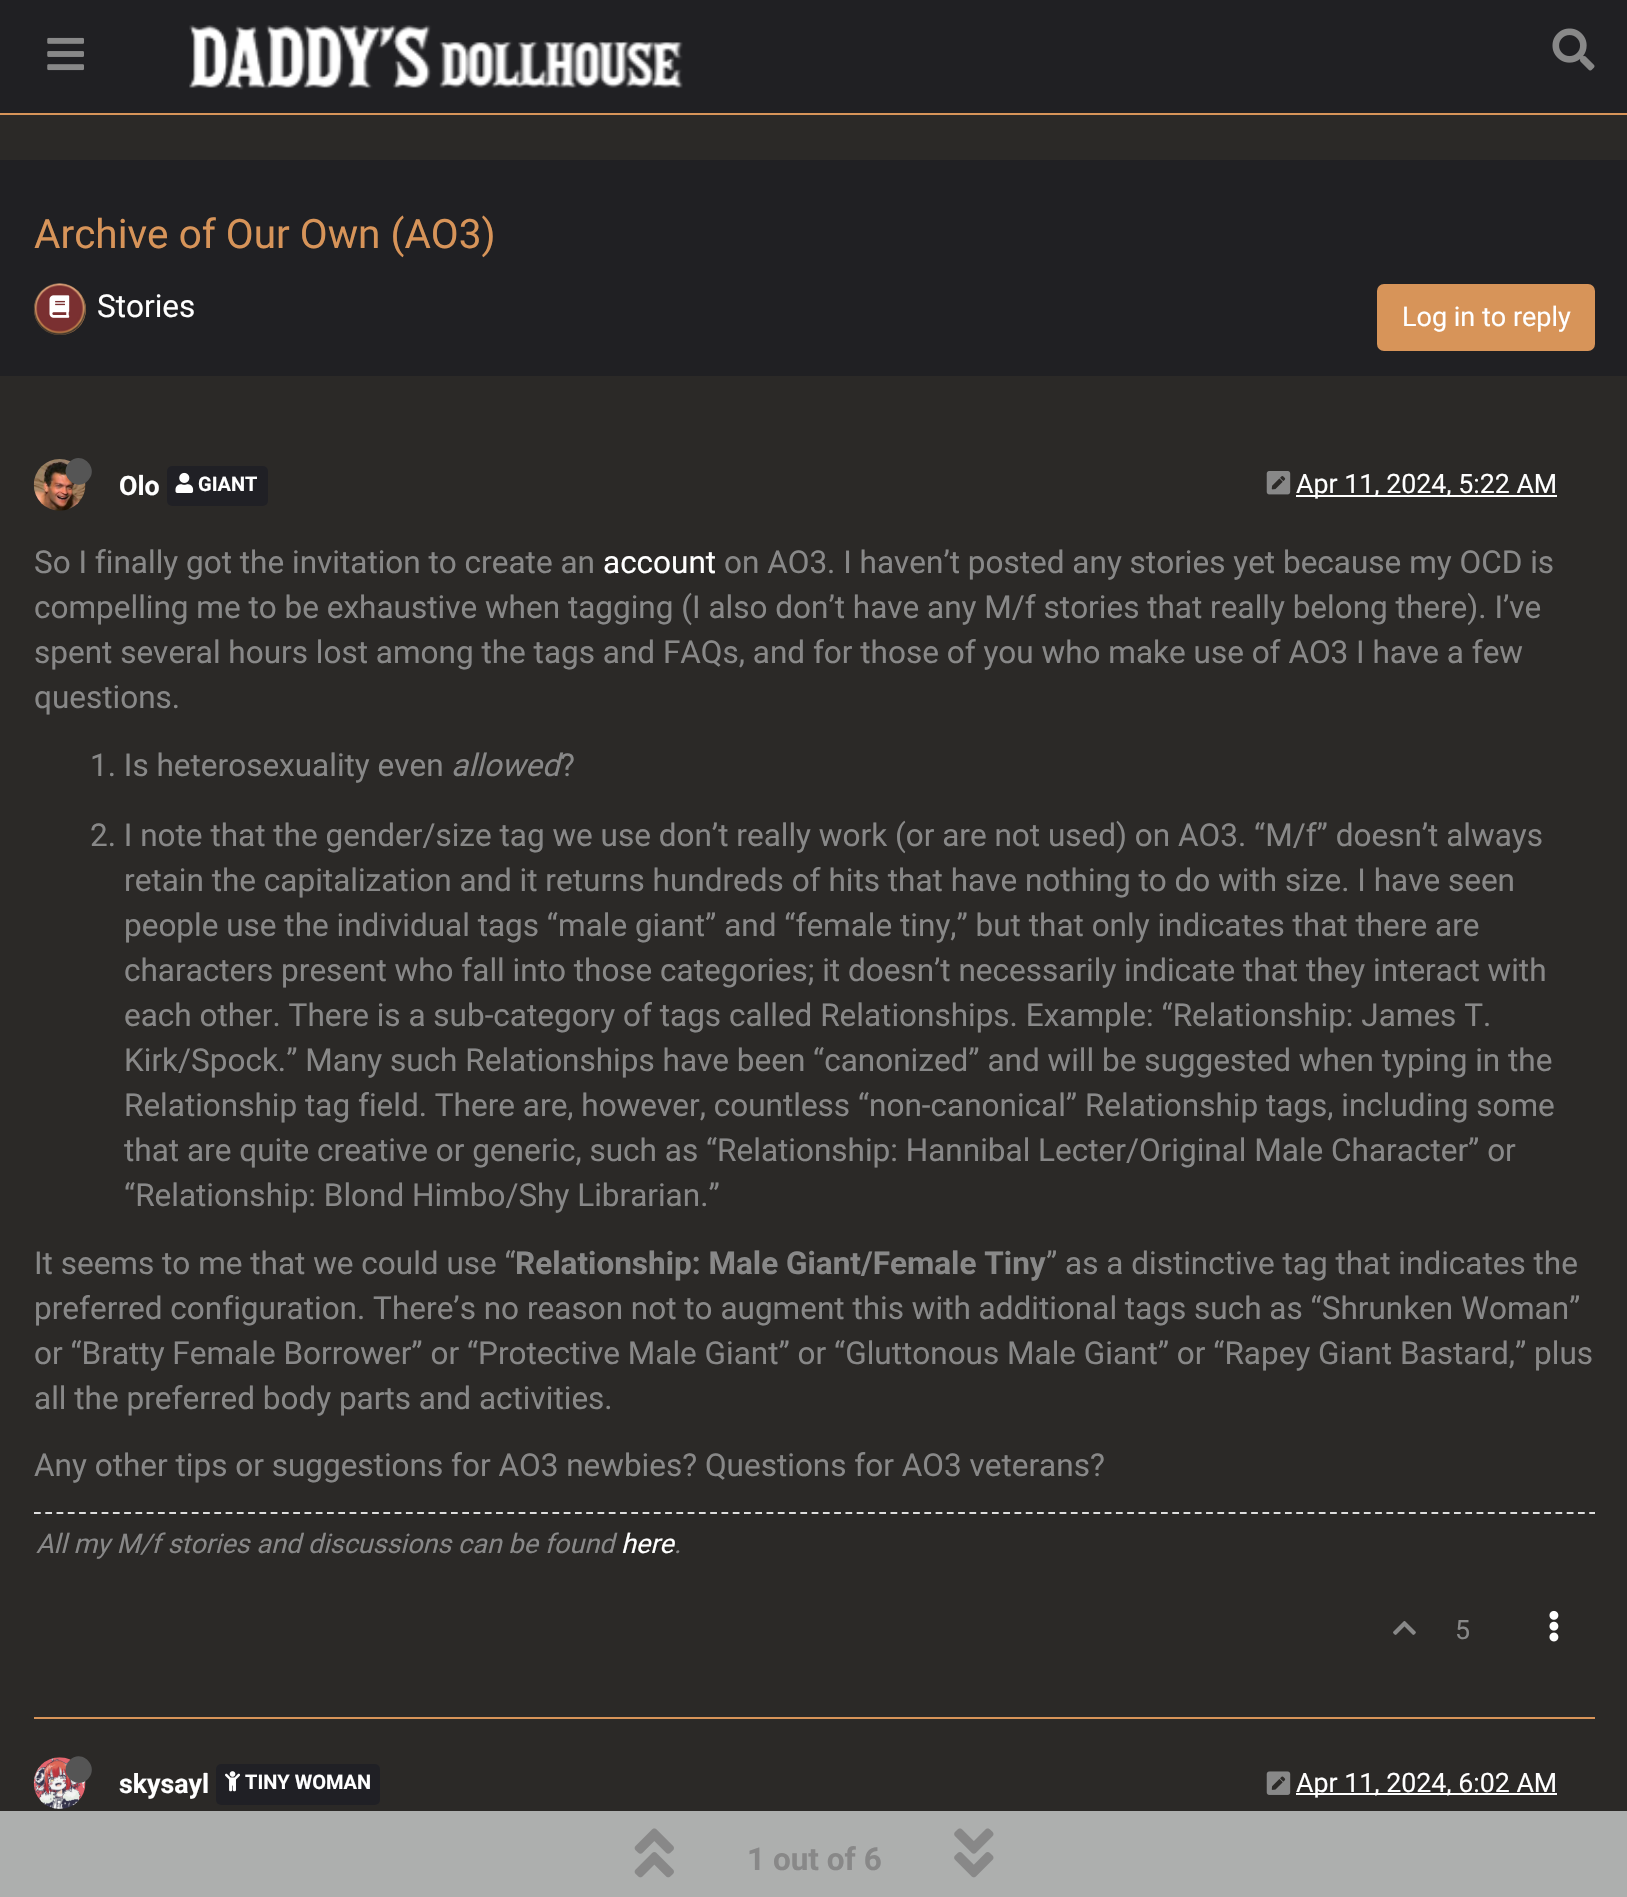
void draw(SkCanvas* canvas) {
	SkPaint paint;
	paint.setAntiAlias(true);
	auto svgPath = [&](const char* data, bool evenOdd = false) {
		SkPath result = *SkParsePath::FromSVGString(data);
		if (evenOdd) result.setFillType(SkPathFillType::kEvenOdd);
		return result;
	};
	canvas->clear(0xff2b2927);
	paint.setColor(0xff202023);
	canvas->drawRect(SkRect::MakeXYWH(0, 0, 1627, 113), paint);
	paint.setColor(0xffd79459);
	canvas->drawRect(SkRect::MakeXYWH(0, 113, 1627, 2), paint);
	canvas->drawImageRect(SkImages::DeferredFromEncodedData(SkData::MakeFromFileName("img1.png")), SkRect::MakeXYWH(47, 37, 37, 34), SkSamplingOptions());
	canvas->drawImageRect(SkImages::DeferredFromEncodedData(SkData::MakeFromFileName("img2.png")), SkRect::MakeXYWH(189, 25, 494, 65), SkSamplingOptions());
	canvas->drawImageRect(SkImages::DeferredFromEncodedData(SkData::MakeFromFileName("img3.png")), SkRect::MakeXYWH(1552, 28, 43, 43), SkSamplingOptions());
	paint.setColor(0xff202023);
	canvas->drawRect(SkRect::MakeXYWH(0, 160, 1627, 216), paint);
	SkFont f1(fontMgr->matchFamilyStyle("Roboto", SkFontStyle::Normal()), 40.5);
	f1.setSubpixel(true);
	paint.setColor(0xffd79459);
	canvas->drawString("Archive of Our Own (AO3)", 34, 248, f1, paint);
	canvas->drawRoundRect(SkRect::MakeXYWH(34, 284, 52, 51), 25.5, 25.5, paint);
	canvas->drawImageRect(SkImages::DeferredFromEncodedData(SkData::MakeFromFileName("img4.png")), SkRect::MakeXYWH(33, 283, 53, 52), SkSamplingOptions());
	canvas->drawImageRect(SkImages::DeferredFromEncodedData(SkData::MakeFromFileName("img5.png")), SkRect::MakeXYWH(49, 295, 21, 23), SkSamplingOptions());
	SkFont f2(fontMgr->matchFamilyStyle("Roboto", SkFontStyle::Normal()), 31.5);
	f2.setSubpixel(true);
	paint.setColor(0xffffffff);
	canvas->drawString("Stories", 97, 317, f2, paint);
	paint.setColor(0xffd79459);
	canvas->drawRoundRect(SkRect::MakeXYWH(1378, 285, 216, 65), 6, 6, paint);
	paint.setStroke(true);
	paint.setStrokeWidth(2);
	canvas->drawRoundRect(SkRect::MakeXYWH(1378, 285, 216, 65), 6, 6, paint);
	SkFont f3(fontMgr->matchFamilyStyle("Roboto", SkFontStyle::Normal()), 27);
	f3.setSubpixel(true);
	paint.setStroke(false);
	paint.setColor(0xffffffff);
	canvas->drawString("Log in to reply", 1402, 326, f3, paint);
	paint.setColor(0xffd79459);
	canvas->drawRect(SkRect::MakeXYWH(34, 1717, 1561, 2), paint);
	canvas->drawImageRect(SkImages::DeferredFromEncodedData(SkData::MakeFromFileName("img6.png")), SkRect::MakeXYWH(33, 459, 53, 52), SkSamplingOptions());
	paint.setColor(0xff555555);
	canvas->drawPath(svgPath("M69.5 462C81.5 450 100 468.5 88 480.5C76 493 57.5 474.5 69.5 462Z"), paint);
	SkFont f4(fontMgr->matchFamilyStyle("Roboto", SkFontStyle::Bold()), 26.75);
	f4.setSubpixel(true);
	paint.setColor(0xffffffff);
	canvas->drawString("Olo", 119, 495, f4, paint);
	paint.setColor(0xff202025);
	canvas->drawRoundRect(SkRect::MakeXYWH(167, 466, 101, 40), 5, 5, paint);
	canvas->drawImageRect(SkImages::DeferredFromEncodedData(SkData::MakeFromFileName("img7.png")), SkRect::MakeXYWH(175, 472, 19, 21), SkSamplingOptions());
	SkFont f5(fontMgr->matchFamilyStyle("Roboto", SkFontStyle::Bold()), 20);
	f5.setSubpixel(true);
	paint.setColor(0xffffffff);
	canvas->drawString("GIANT", 198, 491, f5, paint);
	canvas->drawImageRect(SkImages::DeferredFromEncodedData(SkData::MakeFromFileName("img8.png")), SkRect::MakeXYWH(1266, 471, 25, 24), SkSamplingOptions());
	canvas->drawRect(SkRect::MakeXYWH(1296, 495, 261, 2), paint);
	SkFont f6(fontMgr->matchFamilyStyle("Roboto", SkFontStyle::Normal()), 26.75);
	f6.setSubpixel(true);
	canvas->drawString("Apr 11, 2024, 5:22 AM", 1296, 493, f6, paint);
	paint.setColor(0xff888888);
	canvas->drawString("So I finally got the invitation to create an", 34, 573, f2, paint);
	paint.setColor(0xffffffff);
	canvas->drawString("account", 603, 573, f2, paint);
	paint.setColor(0xff888888);
	canvas->drawString("on AO3. I haven’t posted any stories yet because my OCD is", 724, 573, f2, paint);
	canvas->drawString("compelling me to be exhaustive when tagging (I also don’t have any M/f stories that really belong there). I’ve", 34, 618, f2, paint);
	canvas->drawString("spent several hours lost among the tags and FAQs, and for those of you who make use of AO3 I have a few", 34, 663, f2, paint);
	canvas->drawString("questions.", 34, 708, f2, paint);
	canvas->drawString("1. Is heterosexuality even", 90, 776, f2, paint);
	SkFont f7(fontMgr->matchFamilyStyle("Roboto", SkFontStyle::Italic()), 31.5);
	f7.setSubpixel(true);
	canvas->drawString("allowed", 451, 776, f7, paint);
	canvas->drawString("?", 560, 776, f2, paint);
	canvas->drawString("2. I note that the gender/size tag we use don’t really work (or are not used) on AO3. “M/f” doesn’t always", 90, 846, f2, paint);
	canvas->drawString("retain the capitalization and it returns hundreds of hits that have nothing to do with size. I have seen", 124, 891, f2, paint);
	canvas->drawString("people use the individual tags “male giant” and “female tiny,” but that only indicates that there are", 124, 936, f2, paint);
	canvas->drawString("characters present who fall into those categories; it doesn’t necessarily indicate that they interact with", 124, 981, f2, paint);
	canvas->drawString("each other. There is a sub-category of tags called Relationships. Example: “Relationship: James T.", 124, 1026, f2, paint);
	canvas->drawString("Kirk/Spock.” Many such Relationships have been “canonized” and will be suggested when typing in the", 124, 1071, f2, paint);
	canvas->drawString("Relationship tag field. There are, however, countless “non-canonical” Relationship tags, including some", 124, 1116, f2, paint);
	canvas->drawString("that are quite creative or generic, such as “Relationship: Hannibal Lecter/Original Male Character” or", 124, 1161, f2, paint);
	canvas->drawString("“Relationship: Blond Himbo/Shy Librarian.”", 124, 1206, f2, paint);
	canvas->drawString("It seems to me that we could use “", 34, 1274, f2, paint);
	SkFont f8(fontMgr->matchFamilyStyle("Roboto", SkFontStyle::Bold()), 31.5);
	f8.setSubpixel(true);
	canvas->drawString("Relationship: Male Giant/Female Tiny", 515, 1274, f8, paint);
	canvas->drawString("” as a distinctive tag that indicates the", 1046, 1274, f2, paint);
	canvas->drawString("preferred configuration. There’s no reason not to augment this with additional tags such as “Shrunken Woman”", 34, 1319, f2, paint);
	canvas->drawString("or “Bratty Female Borrower” or “Protective Male Giant” or “Gluttonous Male Giant” or “Rapey Giant Bastard,” plus", 34, 1364, f2, paint);
	canvas->drawString("all the preferred body parts and activities.", 34, 1409, f2, paint);
	canvas->drawString("Any other tips or suggestions for AO3 newbies? Questions for AO3 veterans?", 34, 1476, f2, paint);
	paint.setStroke(true);
	paint.setStrokeWidth(2.2);
	paint.setColor(0xffdedede);
	paint.setPathEffect(SkDashPathEffect::Make({{6.75f, 4.52f}}, 0));
	canvas->drawPath(svgPath("M34 1513H1595"), paint);
	paint.setPathEffect(nullptr);
	SkFont f9(fontMgr->matchFamilyStyle("Roboto", SkFontStyle::Italic()), 27);
	f9.setSubpixel(true);
	paint.setStroke(false);
	paint.setColor(0xff888888);
	canvas->drawString("All my M/f stories and discussions can be found", 36, 1553, f9, paint);
	paint.setColor(0xffffffff);
	canvas->drawString("here", 621, 1553, f9, paint);
	paint.setColor(0xff888888);
	canvas->drawString(".", 674, 1553, f9, paint);
	canvas->drawImageRect(SkImages::DeferredFromEncodedData(SkData::MakeFromFileName("img9.png")), SkRect::MakeXYWH(1393, 1621, 23, 14), SkSamplingOptions());
	canvas->drawString("5", 1455, 1639, f6, paint);
	canvas->drawImageRect(SkImages::DeferredFromEncodedData(SkData::MakeFromFileName("img10.png")), SkRect::MakeXYWH(1549, 1610, 10, 32), SkSamplingOptions());
	canvas->drawImageRect(SkImages::DeferredFromEncodedData(SkData::MakeFromFileName("img11.png")), SkRect::MakeXYWH(33, 1757, 53, 52), SkSamplingOptions());
	paint.setColor(0xff555555);
	canvas->drawPath(svgPath("M69.5 1760.5C81.5 1748 100 1766.5 88 1779C76 1791 57.5 1772.5 69.5 1760.5Z"), paint);
	paint.setColor(0xffffffff);
	canvas->drawString("skysayl", 119, 1793, f4, paint);
	paint.setColor(0xff202025);
	canvas->drawRoundRect(SkRect::MakeXYWH(216, 1764, 164, 41), 5, 5, paint);
	canvas->drawImageRect(SkImages::DeferredFromEncodedData(SkData::MakeFromFileName("img12.png")), SkRect::MakeXYWH(225, 1771, 15, 21), SkSamplingOptions());
	paint.setColor(0xffffffff);
	canvas->drawString("TINY WOMAN", 245, 1789, f5, paint);
	canvas->drawImageRect(SkImages::DeferredFromEncodedData(SkData::MakeFromFileName("img13.png")), SkRect::MakeXYWH(1266, 1771, 25, 24), SkSamplingOptions());
	canvas->drawRect(SkRect::MakeXYWH(1296, 1793, 261, 2), paint);
	canvas->drawString("Apr 11, 2024, 6:02 AM", 1296, 1792, f6, paint);
	paint.setColor(0xffadafae);
	canvas->drawRect(SkRect::MakeXYWH(0, 1811, 1627, 86), paint);
	canvas->drawImageRect(SkImages::DeferredFromEncodedData(SkData::MakeFromFileName("img14.png")), SkRect::MakeXYWH(634, 1828, 40, 50), SkSamplingOptions());
	paint.setColor(0xff888888);
	canvas->drawString("1 out of 6", 747, 1870, f8, paint);
	canvas->drawImageRect(SkImages::DeferredFromEncodedData(SkData::MakeFromFileName("img15.png")), SkRect::MakeXYWH(954, 1828, 40, 50), SkSamplingOptions());
}
